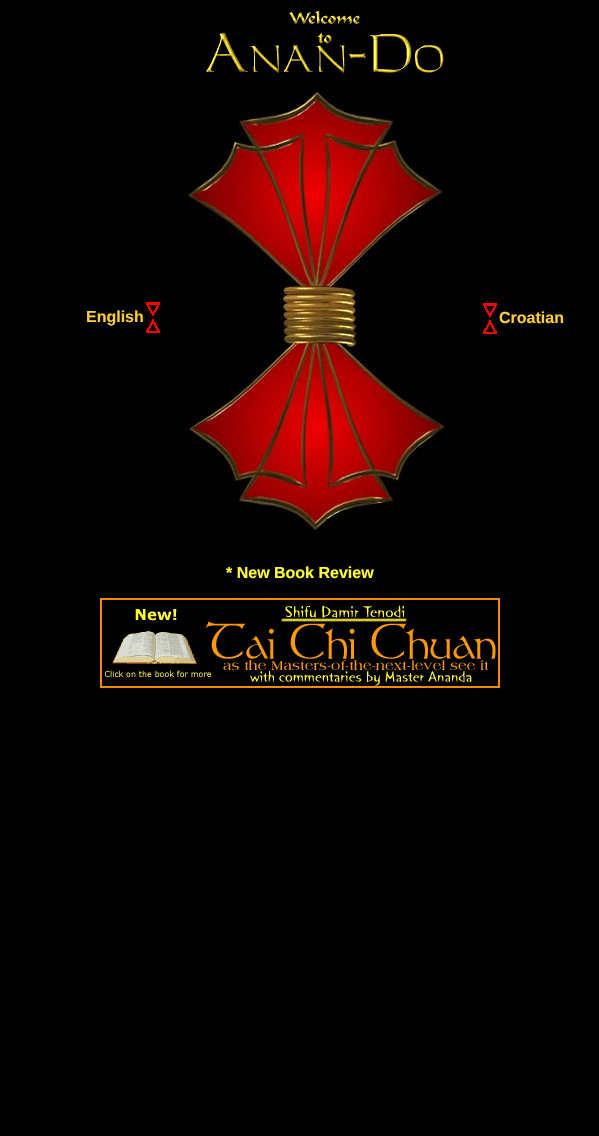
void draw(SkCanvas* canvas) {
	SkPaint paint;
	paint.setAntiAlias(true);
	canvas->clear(0xff000000);
	canvas->drawImageRect(SkImages::DeferredFromEncodedData(SkData::MakeFromFileName("img1.png")), SkRect::MakeXYWH(206, 11, 238, 62), SkSamplingOptions());
	SkFont f1(fontMgr->matchFamilyStyle("Liberation Sans", SkFontStyle::Bold()), 16);
	f1.setSubpixel(true);
	paint.setColor(0xffffcc33);
	canvas->drawString("English", 86, 322, f1, paint);
	canvas->drawImageRect(SkImages::DeferredFromEncodedData(SkData::MakeFromFileName("img2.png")), SkRect::MakeXYWH(146, 302, 14, 31), SkSamplingOptions());
	canvas->drawImageRect(SkImages::DeferredFromEncodedData(SkData::MakeFromFileName("img3.png")), SkRect::MakeXYWH(185, 87, 264, 447), SkSamplingOptions());
	canvas->drawImageRect(SkImages::DeferredFromEncodedData(SkData::MakeFromFileName("img2.png")), SkRect::MakeXYWH(483, 303, 14, 31), SkSamplingOptions());
	canvas->drawString("Croatian", 499, 323, f1, paint);
	paint.setColor(0xffffff33);
	canvas->drawString("* New Book Review", 226, 578, f1, paint);
	canvas->drawImageRect(SkImages::DeferredFromEncodedData(SkData::MakeFromFileName("img4.png")), SkRect::MakeXYWH(100, 598, 400, 90), SkSamplingOptions());
}
